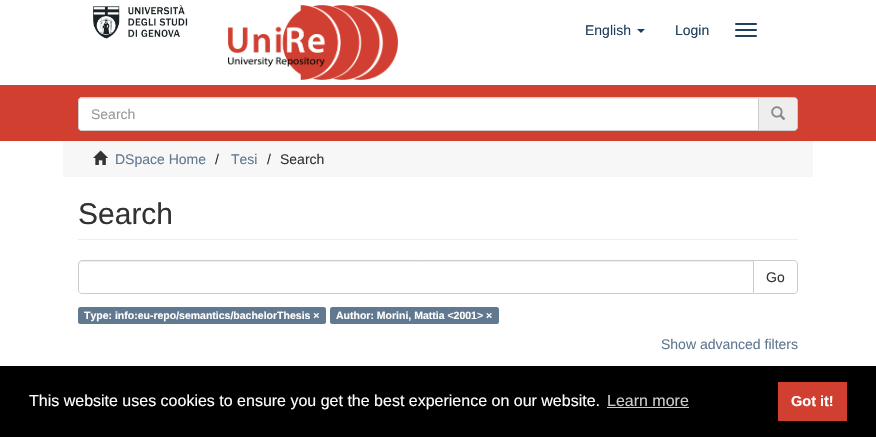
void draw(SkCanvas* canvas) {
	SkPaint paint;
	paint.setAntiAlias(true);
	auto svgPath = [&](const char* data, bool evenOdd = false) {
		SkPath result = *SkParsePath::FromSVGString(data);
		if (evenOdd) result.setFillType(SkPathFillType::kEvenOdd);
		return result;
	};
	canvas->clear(0xffffffff);
	canvas->drawImageRect(SkImages::DeferredFromEncodedData(SkData::MakeFromFileName("img1.png")), SkRect::MakeXYWH(93, 5, 95, 34), SkSamplingOptions());
	canvas->drawImageRect(SkImages::DeferredFromEncodedData(SkData::MakeFromFileName("img2.png")), SkRect::MakeXYWH(228, 5, 170, 75), SkSamplingOptions());
	SkFont f1(fontMgr->matchFamilyStyle("Liberation Sans", SkFontStyle::Normal()), 14);
	f1.setSubpixel(true);
	paint.setColor(0xff1f3f5e);
	canvas->drawString("English", 585, 35, f1, paint);
	canvas->drawPath(svgPath("M637 29H645L641 33Z"), paint);
	canvas->drawString("Login", 675, 35, f1, paint);
	canvas->drawRoundRect(SkRect::MakeXYWH(735, 23, 22, 2), 1, 1, paint);
	canvas->drawRoundRect(SkRect::MakeXYWH(735, 29, 22, 2), 1, 1, paint);
	canvas->drawRoundRect(SkRect::MakeXYWH(735, 35, 22, 2), 1, 1, paint);
	paint.setColor(0xffd03f30);
	canvas->drawRect(SkRect::MakeXYWH(0, 85, 876, 56), paint);
	paint.setColor(0xffeeeeee);
	canvas->drawPath(svgPath("M758.5 97.5H794C796 97.5 797.5 99 797.5 101V127C797.5 129 796 130.5 794 130.5H758.5Z"), paint);
	paint.setStroke(true);
	paint.setStrokeWidth(1);
	paint.setColor(0xffcccccc);
	canvas->drawPath(svgPath("M758.5 97.5H794C796 97.5 797.5 99 797.5 101V127C797.5 129 796 130.5 794 130.5H758.5Z"), paint);
	paint.setStroke(false);
	paint.setColor(0xffffffff);
	canvas->drawPath(svgPath("M82 97H759V131H82C80 131 78 129 78 127V101C78 99 80 97 82 97Z"), paint);
	paint.setColor(0xffececec);
	canvas->drawPath(svgPath("M82 99H758V98H82C80 98 79 99 79 101V102C79 100 80 99 82 99Z"), paint);
	paint.setStroke(true);
	paint.setColor(0xffcccccc);
	canvas->drawPath(svgPath("M82 97.5H758.5V130.5H82C80 130.5 78.5 129 78.5 127V101C78.5 99 80 97.5 82 97.5Z"), paint);
	paint.setStroke(false);
	paint.setColor(0xff999999);
	canvas->drawString("Search", 91, 119, f1, paint);
	canvas->drawImageRect(SkImages::DeferredFromEncodedData(SkData::MakeFromFileName("img3.png")), SkRect::MakeXYWH(771, 106, 15, 15), SkSamplingOptions());
	paint.setColor(0xfff7f7f7);
	canvas->drawRect(SkRect::MakeXYWH(63, 141, 750, 36), paint);
	canvas->drawImageRect(SkImages::DeferredFromEncodedData(SkData::MakeFromFileName("img4.png")), SkRect::MakeXYWH(93, 150, 15, 15), SkSamplingOptions());
	paint.setColor(0xff607890);
	canvas->drawString("DSpace Home", 115, 164, f1, paint);
	paint.setColor(0xff333333);
	canvas->drawString("/", 215, 164, f1, paint);
	paint.setColor(0xff607890);
	canvas->drawString("Tesi", 231, 164, f1, paint);
	paint.setColor(0xff333333);
	canvas->drawString("/", 267, 164, f1, paint);
	canvas->drawString("Search", 280, 164, f1, paint);
	paint.setColor(0xffeeeeee);
	canvas->drawRect(SkRect::MakeXYWH(78, 239, 720, 1), paint);
	SkFont f2(fontMgr->matchFamilyStyle("Liberation Sans", SkFontStyle::Normal()), 30);
	f2.setSubpixel(true);
	paint.setColor(0xff333333);
	canvas->drawString("Search", 78, 224, f2, paint);
	paint.setStroke(true);
	paint.setColor(0xffcccccc);
	canvas->drawPath(svgPath("M753.5 260.5H794C796 260.5 797.5 262 797.5 264V290C797.5 292 796 293.5 794 293.5H753.5Z"), paint);
	paint.setStroke(false);
	paint.setColor(0xffffffff);
	canvas->drawPath(svgPath("M82 260H754V294H82C80 294 78 292 78 290V264C78 262 80 260 82 260Z"), paint);
	paint.setColor(0xffececec);
	canvas->drawPath(svgPath("M82 262H753V261H82C80 261 79 262 79 264V265C79 263 80 262 82 262Z"), paint);
	paint.setStroke(true);
	paint.setColor(0xffcccccc);
	canvas->drawPath(svgPath("M82 260.5H753.5V293.5H82C80 293.5 78.5 292 78.5 290V264C78.5 262 80 260.5 82 260.5Z"), paint);
	paint.setStroke(false);
	paint.setColor(0xff333333);
	canvas->drawString("Go", 766, 282, f1, paint);
	paint.setColor(0xff607890);
	canvas->drawRoundRect(SkRect::MakeXYWH(78, 307, 248, 17), 2.5, 2.5, paint);
	SkFont f3(fontMgr->matchFamilyStyle("Liberation Sans", SkFontStyle::Bold()), 10.5);
	f3.setSubpixel(true);
	paint.setColor(0xffffffff);
	canvas->drawString("Type: info:eu-repo/semantics/bachelorThesis ×", 84, 319, f3, paint);
	paint.setColor(0xff607890);
	canvas->drawRoundRect(SkRect::MakeXYWH(330, 307, 169, 17), 2.5, 2.5, paint);
	paint.setColor(0xffffffff);
	canvas->drawString("Author: Morini, Mattia <2001> ×", 336, 319, f3, paint);
	paint.setColor(0xff607890);
	canvas->drawString("Show advanced filters", 661, 349, f1, paint);
	paint.setColor(0xff000000);
	canvas->drawRect(SkRect::MakeXYWH(0, 366, 876, 71), paint);
	SkFont f4(fontMgr->matchFamilyStyle("Liberation Sans", SkFontStyle::Normal()), 16);
	f4.setSubpixel(true);
	paint.setColor(0xffffffff);
	canvas->drawString("This website uses cookies to ensure you get the best experience on our website.", 29, 406, f4, paint);
	paint.setColor(0xffcccccc);
	canvas->drawString("Learn more", 607, 406, f4, paint);
	canvas->drawRect(SkRect::MakeXYWH(607, 407, 82, 1), paint);
	paint.setColor(0xffd03f30);
	canvas->drawRect(SkRect::MakeXYWH(778, 382, 69, 39), paint);
	SkFont f5(fontMgr->matchFamilyStyle("Liberation Sans", SkFontStyle::Bold()), 14.5);
	f5.setSubpixel(true);
	paint.setColor(0xffffffff);
	canvas->drawString("Got it!", 791, 406, f5, paint);
}
